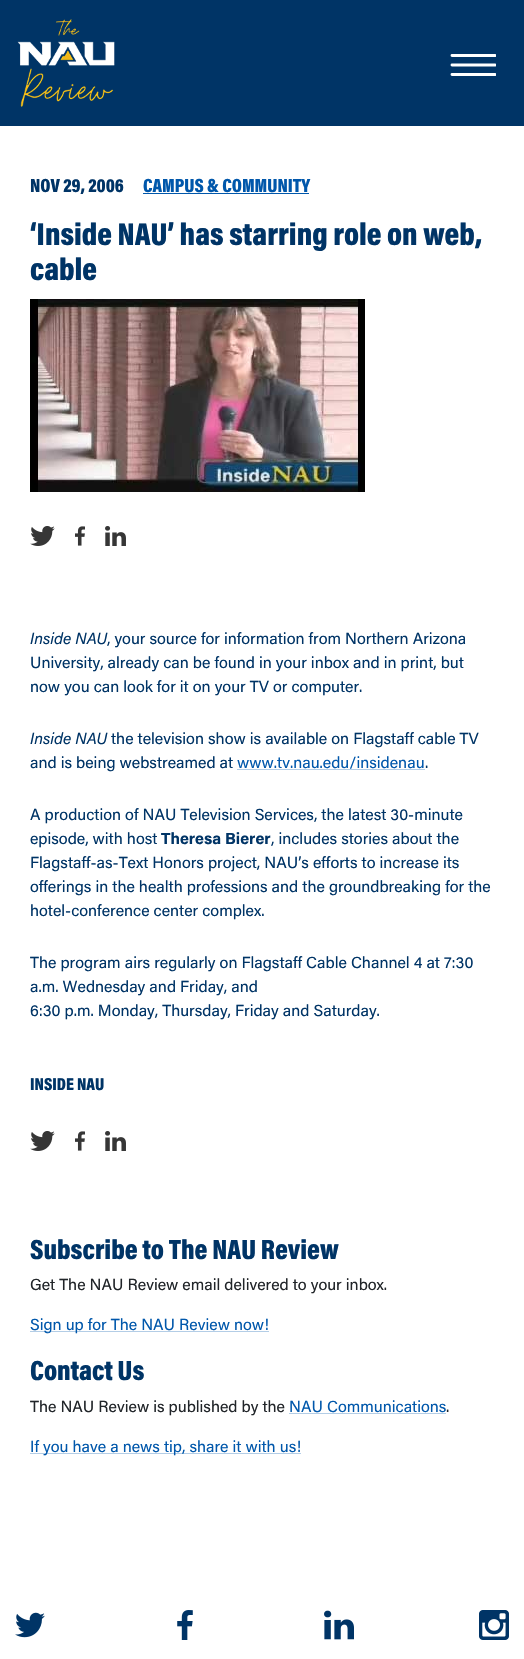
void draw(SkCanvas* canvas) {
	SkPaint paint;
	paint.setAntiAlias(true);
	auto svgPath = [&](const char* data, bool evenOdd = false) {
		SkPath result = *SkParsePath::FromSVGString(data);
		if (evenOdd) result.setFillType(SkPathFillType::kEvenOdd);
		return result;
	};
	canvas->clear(0xffffffff);
	paint.setColor(0xff003466);
	canvas->drawRect(SkRect::MakeXYWH(0, 0, 524, 126), paint);
	canvas->drawImageRect(SkImages::DeferredFromEncodedData(SkData::MakeFromFileName("img1.png")), SkRect::MakeXYWH(17, 19, 98, 88), SkSamplingOptions());
	canvas->save();
	canvas->clipRect(SkRect::MakeXYWH(448, 51, 48, 32));
	paint.setStroke(true);
	paint.setStrokeWidth(2.9);
	paint.setStrokeCap(SkPaint::kRound_Cap);
	paint.setColor(0xffffffff);
	canvas->drawPath(svgPath("M452 55.5H495M452 65H495M452 74.5H495"), paint);
	canvas->restore();
	SkFont f1(fontMgr->matchFamilyStyle("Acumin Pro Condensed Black", SkFontStyle(900, SkFontStyle::kNormal_Width, SkFontStyle::kUpright_Slant)), 19.25);
	f1.setSubpixel(true);
	paint.setStroke(false);
	paint.setColor(0xff003466);
	canvas->drawString("NOV 29, 2006", 30, 192, f1, paint);
	paint.setColor(0xff0057ab);
	canvas->drawString("CAMPUS & COMMUNITY", 143, 192, f1, paint);
	canvas->drawRect(SkRect::MakeXYWH(143, 193, 166, 1), paint);
	SkFont f2(fontMgr->matchFamilyStyle("Acumin Pro Condensed Black", SkFontStyle(900, SkFontStyle::kNormal_Width, SkFontStyle::kUpright_Slant)), 32);
	f2.setSubpixel(true);
	paint.setColor(0xff003466);
	canvas->drawString("‘Inside NAU’ has starring role on web,", 30, 245, f2, paint);
	canvas->drawString("cable", 30, 280, f2, paint);
	canvas->drawImageRect(SkImages::DeferredFromEncodedData(SkData::MakeFromFileName("img2.png")), SkRect::MakeXYWH(30, 299, 335, 193), SkSamplingOptions());
	canvas->drawImageRect(SkImages::DeferredFromEncodedData(SkData::MakeFromFileName("img3.png")), SkRect::MakeXYWH(30, 526, 25, 20), SkSamplingOptions());
	canvas->drawImageRect(SkImages::DeferredFromEncodedData(SkData::MakeFromFileName("img4.png")), SkRect::MakeXYWH(75, 526, 10, 20), SkSamplingOptions());
	canvas->drawImageRect(SkImages::DeferredFromEncodedData(SkData::MakeFromFileName("img5.png")), SkRect::MakeXYWH(105, 526, 21, 20), SkSamplingOptions());
	SkFont f3(fontMgr->matchFamilyStyle("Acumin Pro", SkFontStyle::Italic()), 16);
	f3.setSubpixel(true);
	canvas->drawString("Inside NAU", 30, 644, f3, paint);
	SkFont f4(fontMgr->matchFamilyStyle("Acumin Pro", SkFontStyle::Normal()), 16);
	f4.setSubpixel(true);
	canvas->drawString(", your source for information from Northern Arizona", 107, 644, f4, paint);
	canvas->drawString("University, already can be found in your inbox and in print, but", 30, 668, f4, paint);
	canvas->drawString("now you can look for it on your TV or computer.", 30, 692, f4, paint);
	canvas->drawString("Inside NAU", 30, 744, f3, paint);
	canvas->drawString("the television show is available on Flagstaff cable TV", 111, 744, f4, paint);
	canvas->drawString("and is being webstreamed at", 30, 768, f4, paint);
	paint.setColor(0xff0057ab);
	canvas->drawString("www.tv.nau.edu/insidenau", 237, 768, f4, paint);
	paint.setColor(0xffb3cde6);
	canvas->drawRect(SkRect::MakeXYWH(237, 769, 188, 1), paint);
	paint.setColor(0xff003466);
	canvas->drawString(".", 425, 768, f4, paint);
	canvas->drawString("A production of NAU Television Services, the latest 30-minute", 30, 820, f4, paint);
	canvas->drawString("episode, with host", 30, 844, f4, paint);
	SkFont f5(fontMgr->matchFamilyStyle("Acumin Pro", SkFontStyle::Bold()), 16);
	f5.setSubpixel(true);
	canvas->drawString("Theresa Bierer", 161, 844, f5, paint);
	canvas->drawString(", includes stories about the", 271, 844, f4, paint);
	canvas->drawString("Flagstaff-as-Text Honors project, NAU’s efforts to increase its", 30, 868, f4, paint);
	canvas->drawString("offerings in the health professions and the groundbreaking for the", 30, 892, f4, paint);
	canvas->drawString("hotel-conference center complex.", 30, 916, f4, paint);
	canvas->drawString("The program airs regularly on Flagstaff Cable Channel 4 at 7:30", 30, 968, f4, paint);
	canvas->drawString("a.m. Wednesday and Friday, and", 30, 992, f4, paint);
	canvas->drawString("6:30 p.m. Monday, Thursday, Friday and Saturday.", 30, 1016, f4, paint);
	SkFont f6(fontMgr->matchFamilyStyle("Acumin Pro Condensed Black", SkFontStyle(900, SkFontStyle::kNormal_Width, SkFontStyle::kUpright_Slant)), 17.5);
	f6.setSubpixel(true);
	canvas->drawString("INSIDE NAU", 30, 1090, f6, paint);
	canvas->drawImageRect(SkImages::DeferredFromEncodedData(SkData::MakeFromFileName("img3.png")), SkRect::MakeXYWH(30, 1131, 25, 20), SkSamplingOptions());
	canvas->drawImageRect(SkImages::DeferredFromEncodedData(SkData::MakeFromFileName("img4.png")), SkRect::MakeXYWH(75, 1131, 10, 20), SkSamplingOptions());
	canvas->drawImageRect(SkImages::DeferredFromEncodedData(SkData::MakeFromFileName("img5.png")), SkRect::MakeXYWH(105, 1131, 21, 20), SkSamplingOptions());
	SkFont f7(fontMgr->matchFamilyStyle("Acumin Pro Condensed Black", SkFontStyle(900, SkFontStyle::kNormal_Width, SkFontStyle::kUpright_Slant)), 28);
	f7.setSubpixel(true);
	canvas->drawString("Subscribe to The NAU Review", 30, 1259, f7, paint);
	paint.setColor(0xff212529);
	canvas->drawString("Get The NAU Review email delivered to your inbox.", 30, 1290, f4, paint);
	paint.setColor(0xffb3cde6);
	canvas->drawRect(SkRect::MakeXYWH(30, 1331, 239, 1), paint);
	paint.setColor(0xff0057ab);
	canvas->drawString("Sign up for The NAU Review now!", 30, 1330, f4, paint);
	paint.setColor(0xff003466);
	canvas->drawString("Contact Us", 30, 1380, f7, paint);
	paint.setColor(0xff212529);
	canvas->drawString("The NAU Review is published by the", 30, 1412, f4, paint);
	paint.setColor(0xff0057ab);
	canvas->drawString("NAU Communications", 289, 1412, f4, paint);
	paint.setColor(0xffb3cde6);
	canvas->drawRect(SkRect::MakeXYWH(289, 1413, 157, 1), paint);
	paint.setColor(0xff212529);
	canvas->drawString(".", 446, 1412, f4, paint);
	paint.setColor(0xffb3cde6);
	canvas->drawRect(SkRect::MakeXYWH(30, 1453, 271, 1), paint);
	paint.setColor(0xff0057ab);
	canvas->drawString("If you have a news tip, share it with us!", 30, 1452, f4, paint);
	canvas->drawImageRect(SkImages::DeferredFromEncodedData(SkData::MakeFromFileName("img6.png")), SkRect::MakeXYWH(15, 1612, 30, 26), SkSamplingOptions());
	canvas->drawImageRect(SkImages::DeferredFromEncodedData(SkData::MakeFromFileName("img7.png")), SkRect::MakeXYWH(177, 1610, 16, 30), SkSamplingOptions());
	canvas->drawImageRect(SkImages::DeferredFromEncodedData(SkData::MakeFromFileName("img8.png")), SkRect::MakeXYWH(324, 1610, 30, 30), SkSamplingOptions());
	canvas->drawImageRect(SkImages::DeferredFromEncodedData(SkData::MakeFromFileName("img9.png")), SkRect::MakeXYWH(479, 1610, 30, 30), SkSamplingOptions());
}
